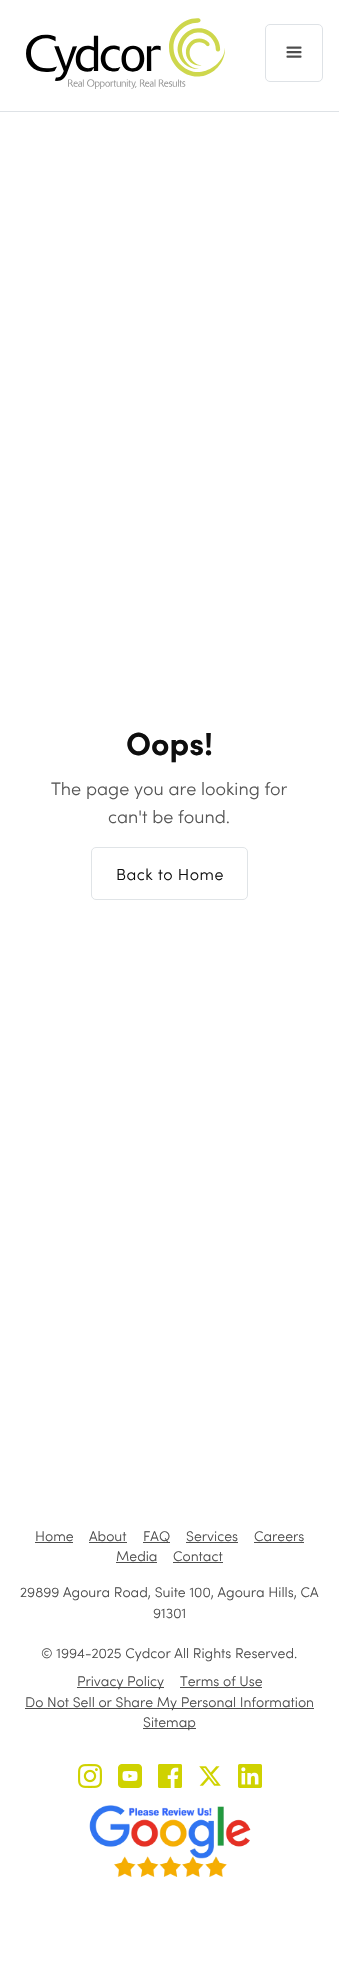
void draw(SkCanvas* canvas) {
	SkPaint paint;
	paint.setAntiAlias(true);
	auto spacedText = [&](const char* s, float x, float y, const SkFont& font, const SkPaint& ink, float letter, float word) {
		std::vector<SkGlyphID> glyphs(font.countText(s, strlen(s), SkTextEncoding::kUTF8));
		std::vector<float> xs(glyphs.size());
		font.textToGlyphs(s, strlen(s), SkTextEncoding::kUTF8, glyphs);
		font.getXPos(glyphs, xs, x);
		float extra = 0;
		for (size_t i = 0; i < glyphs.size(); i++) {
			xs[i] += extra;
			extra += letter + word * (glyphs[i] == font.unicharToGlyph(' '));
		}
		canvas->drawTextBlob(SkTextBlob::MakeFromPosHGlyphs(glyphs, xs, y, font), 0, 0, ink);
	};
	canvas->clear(0xffffffff);
	canvas->drawImageRect(SkImages::DeferredFromEncodedData(SkData::MakeFromFileName("img1.png")), SkRect::MakeXYWH(26, 18, 199, 71), SkSamplingOptions());
	paint.setStroke(true);
	paint.setStrokeWidth(1);
	paint.setColor(0xffdee2e6);
	canvas->drawRoundRect(SkRect::MakeXYWH(265.5, 24.5, 57, 57), 4.5, 4.5, paint);
	canvas->drawImageRect(SkImages::DeferredFromEncodedData(SkData::MakeFromFileName("img2.png")), SkRect::MakeXYWH(286, 46, 16, 12), SkSamplingOptions());
	paint.setStroke(false);
	canvas->drawRect(SkRect::MakeXYWH(0, 111, 339, 1), paint);
	SkFont f1(fontMgr->matchFamilyStyle("Sofia", SkFontStyle::Bold()), 32);
	f1.setSubpixel(true);
	paint.setColor(0xff0e0e0e);
	canvas->drawString("Oops!", 126, 755, f1, paint);
	SkFont f2(fontMgr->matchFamilyStyle("Sofia", SkFontStyle(300, SkFontStyle::kNormal_Width, SkFontStyle::kUpright_Slant)), 18);
	f2.setSubpixel(true);
	paint.setColor(0xff575757);
	canvas->drawString("The page you are looking for", 51, 795, f2, paint);
	canvas->drawString("can't be found.", 108, 823, f2, paint);
	paint.setStroke(true);
	paint.setColor(0xffe0e4e7);
	canvas->drawRoundRect(SkRect::MakeXYWH(91.5, 847.5, 156, 52), 4.5, 4.5, paint);
	SkFont f3(fontMgr->matchFamilyStyle("Sofia", SkFontStyle(300, SkFontStyle::kNormal_Width, SkFontStyle::kUpright_Slant)), 16);
	f3.setSubpixel(true);
	paint.setStroke(false);
	paint.setColor(0xff0e0e0e);
	spacedText("Back to Home", 116, 880, f3, paint, 0.5, 0);
	SkFont f4(fontMgr->matchFamilyStyle("Sofia", SkFontStyle(300, SkFontStyle::kNormal_Width, SkFontStyle::kUpright_Slant)), 14);
	f4.setSubpixel(true);
	paint.setColor(0xff4d4d4d);
	canvas->drawString("Home", 35, 1541, f4, paint);
	canvas->drawRect(SkRect::MakeXYWH(35, 1542, 38, 1), paint);
	canvas->drawString("About", 89, 1541, f4, paint);
	canvas->drawRect(SkRect::MakeXYWH(89, 1542, 38, 1), paint);
	canvas->drawRect(SkRect::MakeXYWH(143, 1542, 27, 1), paint);
	canvas->drawString("FAQ", 143, 1541, f4, paint);
	canvas->drawString("Services", 186, 1541, f4, paint);
	canvas->drawRect(SkRect::MakeXYWH(186, 1542, 52, 1), paint);
	canvas->drawString("Careers", 254, 1541, f4, paint);
	canvas->drawRect(SkRect::MakeXYWH(254, 1542, 50, 1), paint);
	canvas->drawString("Media", 116, 1561, f4, paint);
	canvas->drawRect(SkRect::MakeXYWH(116, 1562, 41, 1), paint);
	canvas->drawString("Contact", 173, 1561, f4, paint);
	canvas->drawRect(SkRect::MakeXYWH(173, 1562, 50, 1), paint);
	canvas->drawString("29899 Agoura Road, Suite 100, Agoura Hills, CA", 20, 1597, f4, paint);
	canvas->drawString("91301", 153, 1618, f4, paint);
	canvas->drawString("© 1994-2025 Cydcor All Rights Reserved.", 41, 1658, f4, paint);
	canvas->drawRect(SkRect::MakeXYWH(77, 1687, 87, 1), paint);
	canvas->drawString("Privacy Policy", 77, 1686, f4, paint);
	canvas->drawString("Terms of Use", 180, 1686, f4, paint);
	canvas->drawRect(SkRect::MakeXYWH(180, 1687, 82, 1), paint);
	canvas->drawRect(SkRect::MakeXYWH(25, 1708, 289, 1), paint);
	canvas->drawString("Do Not Sell or Share My Personal Information", 25, 1707, f4, paint);
	canvas->drawRect(SkRect::MakeXYWH(143, 1728, 53, 1), paint);
	canvas->drawString("Sitemap", 143, 1727, f4, paint);
	canvas->drawImageRect(SkImages::DeferredFromEncodedData(SkData::MakeFromFileName("img3.png")), SkRect::MakeXYWH(78, 1764, 24, 24), SkSamplingOptions());
	canvas->drawImageRect(SkImages::DeferredFromEncodedData(SkData::MakeFromFileName("img4.png")), SkRect::MakeXYWH(118, 1764, 24, 24), SkSamplingOptions());
	canvas->drawImageRect(SkImages::DeferredFromEncodedData(SkData::MakeFromFileName("img5.png")), SkRect::MakeXYWH(158, 1764, 24, 24), SkSamplingOptions());
	canvas->drawImageRect(SkImages::DeferredFromEncodedData(SkData::MakeFromFileName("img6.png")), SkRect::MakeXYWH(199, 1766, 22, 20), SkSamplingOptions());
	canvas->drawImageRect(SkImages::DeferredFromEncodedData(SkData::MakeFromFileName("img7.png")), SkRect::MakeXYWH(238, 1764, 24, 24), SkSamplingOptions());
	canvas->drawImageRect(SkImages::DeferredFromEncodedData(SkData::MakeFromFileName("img8.png")), SkRect::MakeXYWH(89, 1805, 162, 72), SkSamplingOptions());
}
